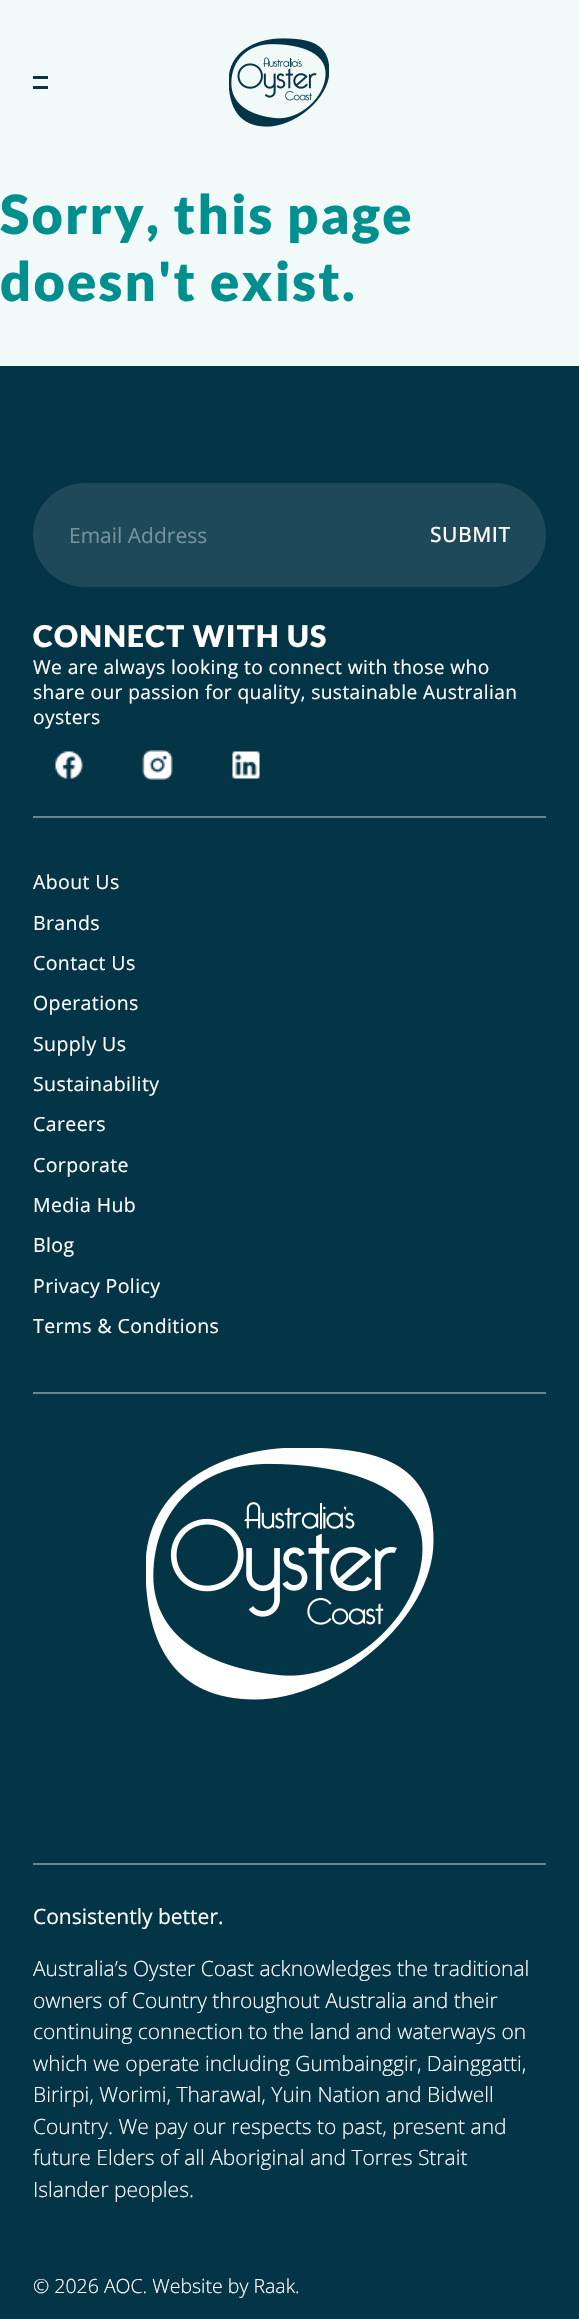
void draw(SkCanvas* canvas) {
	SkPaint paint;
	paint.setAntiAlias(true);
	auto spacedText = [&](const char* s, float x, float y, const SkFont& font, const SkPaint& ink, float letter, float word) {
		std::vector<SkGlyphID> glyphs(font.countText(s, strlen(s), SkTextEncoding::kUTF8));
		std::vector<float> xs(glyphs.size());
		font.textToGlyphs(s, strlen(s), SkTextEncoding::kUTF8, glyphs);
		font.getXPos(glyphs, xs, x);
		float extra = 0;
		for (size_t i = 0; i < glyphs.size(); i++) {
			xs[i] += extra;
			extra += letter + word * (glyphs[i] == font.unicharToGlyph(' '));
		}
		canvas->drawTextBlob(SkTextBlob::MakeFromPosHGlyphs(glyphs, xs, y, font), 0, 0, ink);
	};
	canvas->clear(0xfff2f9f9);
	paint.setColor(0xff043546);
	canvas->drawRect(SkRect::MakeXYWH(33, 76, 15, 3), paint);
	canvas->drawRect(SkRect::MakeXYWH(33, 86, 15, 3), paint);
	canvas->drawImageRect(SkImages::DeferredFromEncodedData(SkData::MakeFromFileName("img1.png")), SkRect::MakeXYWH(229, 38, 100, 89), SkSamplingOptions());
	SkFont f1(fontMgr->matchFamilyStyle("Lato", SkFontStyle(900, SkFontStyle::kNormal_Width, SkFontStyle::kUpright_Slant)), 54);
	f1.setSubpixel(true);
	paint.setColor(0xff008f8f);
	spacedText("Sorry, this page", 0, 234, f1, paint, 2.2, 0);
	spacedText("doesn't exist.", 0, 301, f1, paint, 2.2, 0);
	paint.setColor(0xff043546);
	canvas->drawRect(SkRect::MakeXYWH(0, 366, 579, 1953), paint);
	paint.setColor(0xff688690);
	canvas->drawRect(SkRect::MakeXYWH(33, 816, 513, 2), paint);
	paint.setColor(0xff1d4959);
	canvas->drawRoundRect(SkRect::MakeXYWH(33, 483, 513, 104), 52, 52, paint);
	SkFont f2(fontMgr->matchFamilyStyle("Open Sans", SkFontStyle::Normal()), 21);
	f2.setSubpixel(true);
	paint.setColor(0xff77929b);
	canvas->drawString("Email Address", 69, 543, f2, paint);
	SkFont f3(fontMgr->matchFamilyStyle("Open Sans", SkFontStyle(500, SkFontStyle::kNormal_Width, SkFontStyle::kUpright_Slant)), 21);
	f3.setSubpixel(true);
	paint.setColor(0xffffffff);
	spacedText("SUBMIT", 430, 542, f3, paint, 0.5, 0);
	SkFont f4(fontMgr->matchFamilyStyle("Lato", SkFontStyle(900, SkFontStyle::kNormal_Width, SkFontStyle::kUpright_Slant)), 30);
	f4.setSubpixel(true);
	spacedText("CONNECT WITH US", 33, 647, f4, paint, 1.25, 0);
	SkFont f5(fontMgr->matchFamilyStyle("Open Sans", SkFontStyle::Normal()), 19.2);
	f5.setSubpixel(true);
	spacedText("We are always looking to connect with those who", 33, 674, f5, paint, 0.38, 0);
	spacedText("share our passion for quality, sustainable Australian", 33, 699, f5, paint, 0.38, 0);
	spacedText("oysters", 33, 724, f5, paint, 0.38, 0);
	canvas->drawImageRect(SkImages::DeferredFromEncodedData(SkData::MakeFromFileName("img2.png")), SkRect::MakeXYWH(55, 751, 28, 28), SkSamplingOptions());
	canvas->drawImageRect(SkImages::DeferredFromEncodedData(SkData::MakeFromFileName("img3.png")), SkRect::MakeXYWH(142, 750, 31, 30), SkSamplingOptions());
	canvas->drawImageRect(SkImages::DeferredFromEncodedData(SkData::MakeFromFileName("img4.png")), SkRect::MakeXYWH(232, 751, 28, 28), SkSamplingOptions());
	paint.setColor(0xff688690);
	canvas->drawRect(SkRect::MakeXYWH(33, 1392, 513, 2), paint);
	SkFont f6(fontMgr->matchFamilyStyle("Open Sans", SkFontStyle::Normal()), 19.5);
	f6.setSubpixel(true);
	paint.setColor(0xffffffff);
	spacedText("About Us", 33, 889, f6, paint, 0.4, 0);
	spacedText("Brands", 33, 930, f6, paint, 0.4, 0);
	spacedText("Contact Us", 33, 970, f6, paint, 0.4, 0);
	spacedText("Operations", 33, 1010, f6, paint, 0.4, 0);
	spacedText("Supply Us", 33, 1051, f6, paint, 0.4, 0);
	spacedText("Sustainability", 33, 1091, f6, paint, 0.4, 0);
	spacedText("Careers", 33, 1131, f6, paint, 0.4, 0);
	spacedText("Corporate", 33, 1172, f6, paint, 0.4, 0);
	spacedText("Media Hub", 33, 1212, f6, paint, 0.4, 0);
	spacedText("Blog", 33, 1252, f6, paint, 0.4, 0);
	spacedText("Privacy Policy", 33, 1293, f6, paint, 0.4, 0);
	spacedText("Terms & Conditions", 33, 1333, f6, paint, 0.4, 0);
	canvas->drawImageRect(SkImages::DeferredFromEncodedData(SkData::MakeFromFileName("img5.png")), SkRect::MakeXYWH(146, 1448, 288, 252), SkSamplingOptions());
	paint.setColor(0xff688690);
	canvas->drawRect(SkRect::MakeXYWH(33, 1863, 513, 2), paint);
	paint.setColor(0xffffffff);
	canvas->drawString("Consistently better.", 33, 1924, f2, paint);
	SkFont f7(fontMgr->matchFamilyStyle("Open Sans", SkFontStyle(300, SkFontStyle::kNormal_Width, SkFontStyle::kUpright_Slant)), 21);
	f7.setSubpixel(true);
	canvas->drawString("Australia’s Oyster Coast acknowledges the traditional", 33, 1976, f7, paint);
	canvas->drawString("owners of Country throughout Australia and their", 33, 2008, f7, paint);
	canvas->drawString("continuing connection to the land and waterways on", 33, 2039, f7, paint);
	canvas->drawString("which we operate including Gumbainggir, Dainggatti,", 33, 2071, f7, paint);
	canvas->drawString("Birirpi, Worimi, Tharawal, Yuin Nation and Bidwell", 33, 2102, f7, paint);
	canvas->drawString("Country. We pay our respects to past, present and", 33, 2134, f7, paint);
	canvas->drawString("future Elders of all Aboriginal and Torres Strait", 33, 2165, f7, paint);
	canvas->drawString("Islander peoples.", 33, 2197, f7, paint);
	SkFont f8(fontMgr->matchFamilyStyle("Open Sans", SkFontStyle(300, SkFontStyle::kNormal_Width, SkFontStyle::kUpright_Slant)), 19.5);
	f8.setSubpixel(true);
	canvas->drawString("© 2026 AOC. Website by Raak.", 33, 2293, f8, paint);
}
